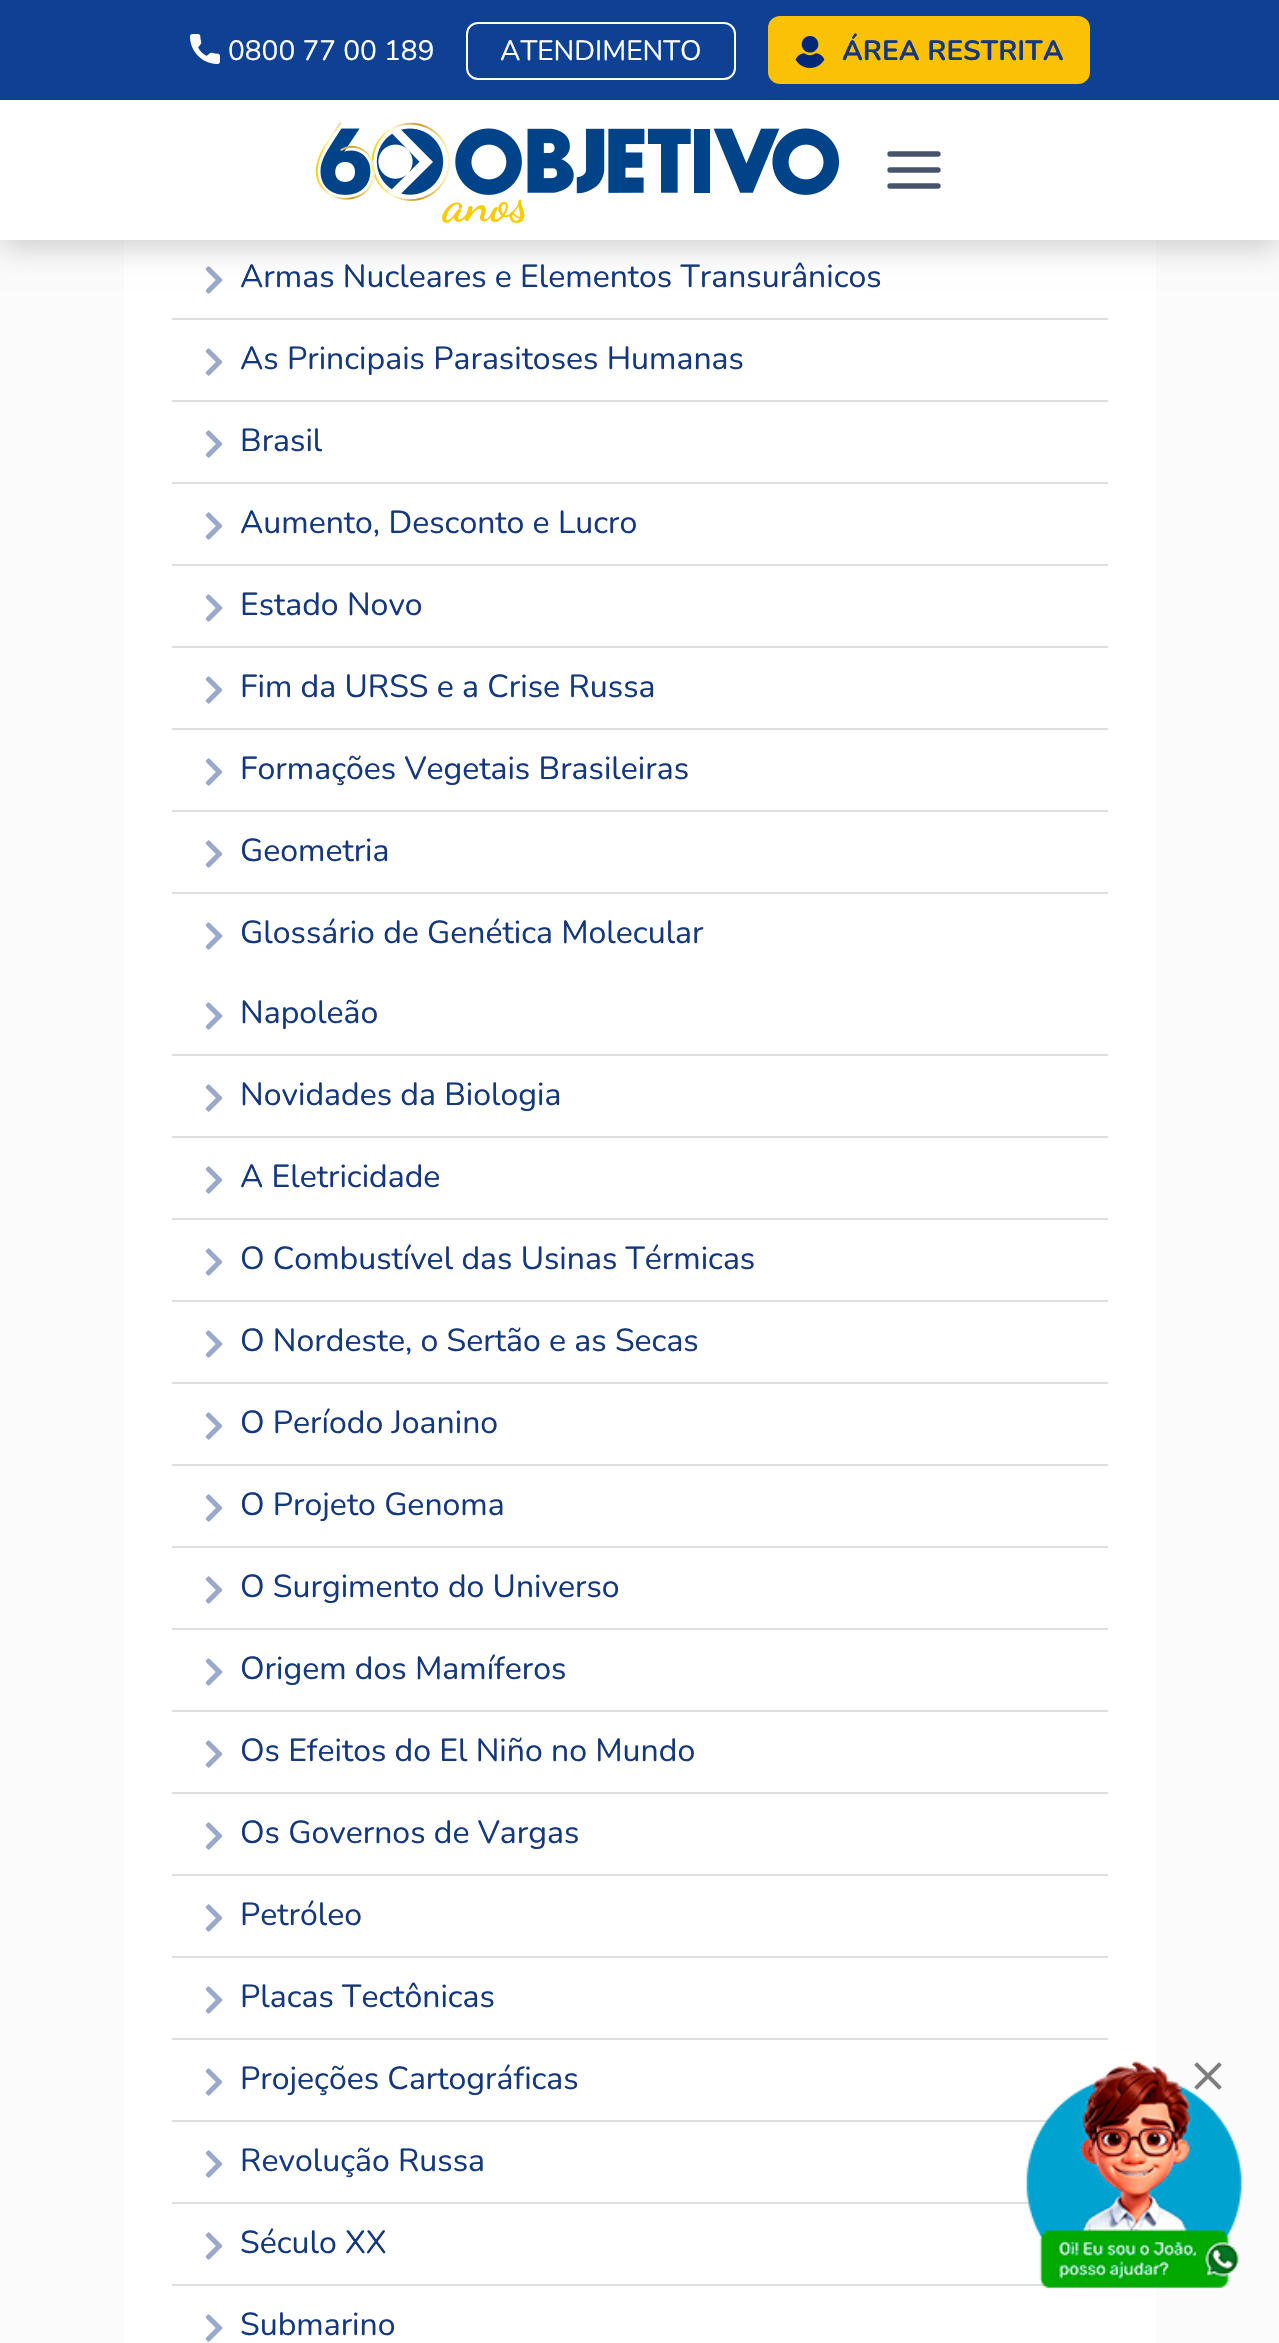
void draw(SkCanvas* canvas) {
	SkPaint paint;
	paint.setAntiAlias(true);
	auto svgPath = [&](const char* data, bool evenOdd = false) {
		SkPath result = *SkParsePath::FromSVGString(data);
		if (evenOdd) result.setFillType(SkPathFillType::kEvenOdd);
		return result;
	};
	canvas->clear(0xfffbfbfb);
	paint.setColor(0xffffffff);
	canvas->drawRect(SkRect::MakeXYWH(124, 240, 1032, 2103), paint);
	canvas->drawImageRect(SkImages::DeferredFromEncodedData(SkData::MakeFromFileName("img4.png")), SkRect::MakeXYWH(205, 266, 18, 28), SkSamplingOptions());
	paint.setColor(0x33000000);
	paint.setMaskFilter(SkMaskFilter::MakeBlur(kNormal_SkBlurStyle, 15));
	canvas->drawRect(SkRect::MakeXYWH(0, 6, 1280, 240), paint);
	paint.setMaskFilter(nullptr);
	paint.setColor(0xff0e4194);
	canvas->drawRect(SkRect::MakeXYWH(0, 0, 1279, 100), paint);
	canvas->drawImageRect(SkImages::DeferredFromEncodedData(SkData::MakeFromFileName("img1.png")), SkRect::MakeXYWH(190, 34, 30, 30), SkSamplingOptions());
	SkFont f1(fontMgr->matchFamilyStyle("Nunito", SkFontStyle::Normal()), 28);
	f1.setSubpixel(true);
	paint.setColor(0xffffffff);
	canvas->drawString("0800 77 00 189", 228, 60, f1, paint);
	paint.setStroke(true);
	paint.setStrokeWidth(2);
	canvas->drawRoundRect(SkRect::MakeXYWH(467, 23, 268, 56), 11, 11, paint);
	paint.setStroke(false);
	canvas->drawString("ATENDIMENTO", 500, 60, f1, paint);
	paint.setColor(0xfffbc105);
	canvas->drawRoundRect(SkRect::MakeXYWH(768, 16, 322, 68), 12, 12, paint);
	canvas->drawImageRect(SkImages::DeferredFromEncodedData(SkData::MakeFromFileName("img2.png")), SkRect::MakeXYWH(795, 36, 30, 32), SkSamplingOptions());
	SkFont f2(fontMgr->matchFamilyStyle("Nunito", SkFontStyle::Bold()), 28);
	f2.setSubpixel(true);
	paint.setColor(0xff14387f);
	canvas->drawString("ÁREA RESTRITA", 842, 60, f2, paint);
	paint.setColor(0xffffffff);
	canvas->drawRect(SkRect::MakeXYWH(0, 100, 1279, 140), paint);
	canvas->drawImageRect(SkImages::DeferredFromEncodedData(SkData::MakeFromFileName("img3.png")), SkRect::MakeXYWH(315, 122, 525, 101), SkSamplingOptions());
	paint.setStroke(true);
	paint.setStrokeWidth(5.3);
	paint.setStrokeCap(SkPaint::kRound_Cap);
	paint.setStrokeJoin(SkPaint::kRound_Join);
	paint.setColor(0xff47536e);
	canvas->drawPath(svgPath("M890 170H938M890 154H938M890 186H938"), paint);
	paint.setStroke(false);
	paint.setColor(0xffdfdfdf);
	canvas->drawRect(SkRect::MakeXYWH(172, 318, 936, 2), paint);
	SkFont f3(fontMgr->matchFamilyStyle("Nunito", SkFontStyle::Normal()), 32);
	f3.setSubpixel(true);
	paint.setColor(0xff14387f);
	canvas->drawString("Armas Nucleares e Elementos Transurânicos", 240, 287, f3, paint);
	paint.setColor(0xffdfdfdf);
	canvas->drawRect(SkRect::MakeXYWH(172, 400, 936, 2), paint);
	canvas->drawImageRect(SkImages::DeferredFromEncodedData(SkData::MakeFromFileName("img4.png")), SkRect::MakeXYWH(205, 348, 18, 28), SkSamplingOptions());
	paint.setColor(0xff14387f);
	canvas->drawString("As Principais Parasitoses Humanas", 240, 369, f3, paint);
	paint.setColor(0xffdfdfdf);
	canvas->drawRect(SkRect::MakeXYWH(172, 482, 936, 2), paint);
	canvas->drawImageRect(SkImages::DeferredFromEncodedData(SkData::MakeFromFileName("img4.png")), SkRect::MakeXYWH(205, 430, 18, 28), SkSamplingOptions());
	paint.setColor(0xff14387f);
	canvas->drawString("Brasil", 240, 451, f3, paint);
	paint.setColor(0xffdfdfdf);
	canvas->drawRect(SkRect::MakeXYWH(172, 564, 936, 2), paint);
	canvas->drawImageRect(SkImages::DeferredFromEncodedData(SkData::MakeFromFileName("img4.png")), SkRect::MakeXYWH(205, 512, 18, 28), SkSamplingOptions());
	paint.setColor(0xff14387f);
	canvas->drawString("Aumento, Desconto e Lucro", 240, 533, f3, paint);
	paint.setColor(0xffdfdfdf);
	canvas->drawRect(SkRect::MakeXYWH(172, 646, 936, 2), paint);
	canvas->drawImageRect(SkImages::DeferredFromEncodedData(SkData::MakeFromFileName("img4.png")), SkRect::MakeXYWH(205, 594, 18, 28), SkSamplingOptions());
	paint.setColor(0xff14387f);
	canvas->drawString("Estado Novo", 240, 615, f3, paint);
	paint.setColor(0xffdfdfdf);
	canvas->drawRect(SkRect::MakeXYWH(172, 728, 936, 2), paint);
	canvas->drawImageRect(SkImages::DeferredFromEncodedData(SkData::MakeFromFileName("img4.png")), SkRect::MakeXYWH(205, 676, 18, 28), SkSamplingOptions());
	paint.setColor(0xff14387f);
	canvas->drawString("Fim da URSS e a Crise Russa", 240, 697, f3, paint);
	paint.setColor(0xffdfdfdf);
	canvas->drawRect(SkRect::MakeXYWH(172, 810, 936, 2), paint);
	canvas->drawImageRect(SkImages::DeferredFromEncodedData(SkData::MakeFromFileName("img4.png")), SkRect::MakeXYWH(205, 758, 18, 28), SkSamplingOptions());
	paint.setColor(0xff14387f);
	canvas->drawString("Formações Vegetais Brasileiras", 240, 779, f3, paint);
	paint.setColor(0xffdfdfdf);
	canvas->drawRect(SkRect::MakeXYWH(172, 892, 936, 2), paint);
	canvas->drawImageRect(SkImages::DeferredFromEncodedData(SkData::MakeFromFileName("img4.png")), SkRect::MakeXYWH(205, 840, 18, 28), SkSamplingOptions());
	paint.setColor(0xff14387f);
	canvas->drawString("Geometria", 240, 861, f3, paint);
	canvas->drawImageRect(SkImages::DeferredFromEncodedData(SkData::MakeFromFileName("img4.png")), SkRect::MakeXYWH(205, 922, 18, 28), SkSamplingOptions());
	canvas->drawString("Glossário de Genética Molecular", 240, 943, f3, paint);
	paint.setColor(0xffdfdfdf);
	canvas->drawRect(SkRect::MakeXYWH(172, 1054, 936, 2), paint);
	canvas->drawImageRect(SkImages::DeferredFromEncodedData(SkData::MakeFromFileName("img4.png")), SkRect::MakeXYWH(205, 1002, 18, 28), SkSamplingOptions());
	paint.setColor(0xff14387f);
	canvas->drawString("Napoleão", 240, 1023, f3, paint);
	paint.setColor(0xffdfdfdf);
	canvas->drawRect(SkRect::MakeXYWH(172, 1136, 936, 2), paint);
	canvas->drawImageRect(SkImages::DeferredFromEncodedData(SkData::MakeFromFileName("img4.png")), SkRect::MakeXYWH(205, 1084, 18, 28), SkSamplingOptions());
	paint.setColor(0xff14387f);
	canvas->drawString("Novidades da Biologia", 240, 1105, f3, paint);
	paint.setColor(0xffdfdfdf);
	canvas->drawRect(SkRect::MakeXYWH(172, 1218, 936, 2), paint);
	canvas->drawImageRect(SkImages::DeferredFromEncodedData(SkData::MakeFromFileName("img4.png")), SkRect::MakeXYWH(205, 1166, 18, 28), SkSamplingOptions());
	paint.setColor(0xff14387f);
	canvas->drawString("A Eletricidade", 240, 1187, f3, paint);
	paint.setColor(0xffdfdfdf);
	canvas->drawRect(SkRect::MakeXYWH(172, 1300, 936, 2), paint);
	canvas->drawImageRect(SkImages::DeferredFromEncodedData(SkData::MakeFromFileName("img4.png")), SkRect::MakeXYWH(205, 1248, 18, 28), SkSamplingOptions());
	paint.setColor(0xff14387f);
	canvas->drawString("O Combustível das Usinas Térmicas", 240, 1269, f3, paint);
	paint.setColor(0xffdfdfdf);
	canvas->drawRect(SkRect::MakeXYWH(172, 1382, 936, 2), paint);
	canvas->drawImageRect(SkImages::DeferredFromEncodedData(SkData::MakeFromFileName("img4.png")), SkRect::MakeXYWH(205, 1330, 18, 28), SkSamplingOptions());
	paint.setColor(0xff14387f);
	canvas->drawString("O Nordeste, o Sertão e as Secas", 240, 1351, f3, paint);
	paint.setColor(0xffdfdfdf);
	canvas->drawRect(SkRect::MakeXYWH(172, 1464, 936, 2), paint);
	canvas->drawImageRect(SkImages::DeferredFromEncodedData(SkData::MakeFromFileName("img4.png")), SkRect::MakeXYWH(205, 1412, 18, 28), SkSamplingOptions());
	paint.setColor(0xff14387f);
	canvas->drawString("O Período Joanino", 240, 1433, f3, paint);
	paint.setColor(0xffdfdfdf);
	canvas->drawRect(SkRect::MakeXYWH(172, 1546, 936, 2), paint);
	canvas->drawImageRect(SkImages::DeferredFromEncodedData(SkData::MakeFromFileName("img4.png")), SkRect::MakeXYWH(205, 1494, 18, 28), SkSamplingOptions());
	paint.setColor(0xff14387f);
	canvas->drawString("O Projeto Genoma", 240, 1515, f3, paint);
	paint.setColor(0xffdfdfdf);
	canvas->drawRect(SkRect::MakeXYWH(172, 1628, 936, 2), paint);
	canvas->drawImageRect(SkImages::DeferredFromEncodedData(SkData::MakeFromFileName("img4.png")), SkRect::MakeXYWH(205, 1576, 18, 28), SkSamplingOptions());
	paint.setColor(0xff14387f);
	canvas->drawString("O Surgimento do Universo", 240, 1597, f3, paint);
	paint.setColor(0xffdfdfdf);
	canvas->drawRect(SkRect::MakeXYWH(172, 1710, 936, 2), paint);
	canvas->drawImageRect(SkImages::DeferredFromEncodedData(SkData::MakeFromFileName("img4.png")), SkRect::MakeXYWH(205, 1658, 18, 28), SkSamplingOptions());
	paint.setColor(0xff14387f);
	canvas->drawString("Origem dos Mamíferos", 240, 1679, f3, paint);
	paint.setColor(0xffdfdfdf);
	canvas->drawRect(SkRect::MakeXYWH(172, 1792, 936, 2), paint);
	canvas->drawImageRect(SkImages::DeferredFromEncodedData(SkData::MakeFromFileName("img4.png")), SkRect::MakeXYWH(205, 1740, 18, 28), SkSamplingOptions());
	paint.setColor(0xff14387f);
	canvas->drawString("Os Efeitos do El Niño no Mundo", 240, 1761, f3, paint);
	paint.setColor(0xffdfdfdf);
	canvas->drawRect(SkRect::MakeXYWH(172, 1874, 936, 2), paint);
	canvas->drawImageRect(SkImages::DeferredFromEncodedData(SkData::MakeFromFileName("img4.png")), SkRect::MakeXYWH(205, 1822, 18, 28), SkSamplingOptions());
	paint.setColor(0xff14387f);
	canvas->drawString("Os Governos de Vargas", 240, 1843, f3, paint);
	paint.setColor(0xffdfdfdf);
	canvas->drawRect(SkRect::MakeXYWH(172, 1956, 936, 2), paint);
	canvas->drawImageRect(SkImages::DeferredFromEncodedData(SkData::MakeFromFileName("img4.png")), SkRect::MakeXYWH(205, 1904, 18, 28), SkSamplingOptions());
	paint.setColor(0xff14387f);
	canvas->drawString("Petróleo", 240, 1925, f3, paint);
	paint.setColor(0xffdfdfdf);
	canvas->drawRect(SkRect::MakeXYWH(172, 2038, 936, 2), paint);
	canvas->drawImageRect(SkImages::DeferredFromEncodedData(SkData::MakeFromFileName("img4.png")), SkRect::MakeXYWH(205, 1986, 18, 28), SkSamplingOptions());
	paint.setColor(0xff14387f);
	canvas->drawString("Placas Tectônicas", 240, 2007, f3, paint);
	paint.setColor(0xffdfdfdf);
	canvas->drawRect(SkRect::MakeXYWH(172, 2120, 877, 2), paint);
	canvas->drawImageRect(SkImages::DeferredFromEncodedData(SkData::MakeFromFileName("img4.png")), SkRect::MakeXYWH(205, 2068, 18, 28), SkSamplingOptions());
	paint.setColor(0xff14387f);
	canvas->drawString("Projeções Cartográficas", 240, 2089, f3, paint);
	paint.setColor(0xffdfdfdf);
	canvas->drawRect(SkRect::MakeXYWH(172, 2202, 859, 2), paint);
	canvas->drawImageRect(SkImages::DeferredFromEncodedData(SkData::MakeFromFileName("img4.png")), SkRect::MakeXYWH(205, 2150, 18, 28), SkSamplingOptions());
	paint.setColor(0xff14387f);
	canvas->drawString("Revolução Russa", 240, 2171, f3, paint);
	paint.setColor(0xffdfdfdf);
	canvas->drawRect(SkRect::MakeXYWH(172, 2284, 877, 2), paint);
	canvas->drawImageRect(SkImages::DeferredFromEncodedData(SkData::MakeFromFileName("img4.png")), SkRect::MakeXYWH(205, 2232, 18, 28), SkSamplingOptions());
	paint.setColor(0xff14387f);
	canvas->drawString("Século XX", 240, 2253, f3, paint);
	canvas->drawImageRect(SkImages::DeferredFromEncodedData(SkData::MakeFromFileName("img4.png")), SkRect::MakeXYWH(205, 2314, 18, 28), SkSamplingOptions());
	canvas->drawString("Submarino", 240, 2335, f3, paint);
	canvas->drawImageRect(SkImages::DeferredFromEncodedData(SkData::MakeFromFileName("img5.png")), SkRect::MakeXYWH(1026, 2061, 216, 228), SkSamplingOptions());
	canvas->drawImageRect(SkImages::DeferredFromEncodedData(SkData::MakeFromFileName("img6.png")), SkRect::MakeXYWH(1194, 2062, 28, 28), SkSamplingOptions());
}
